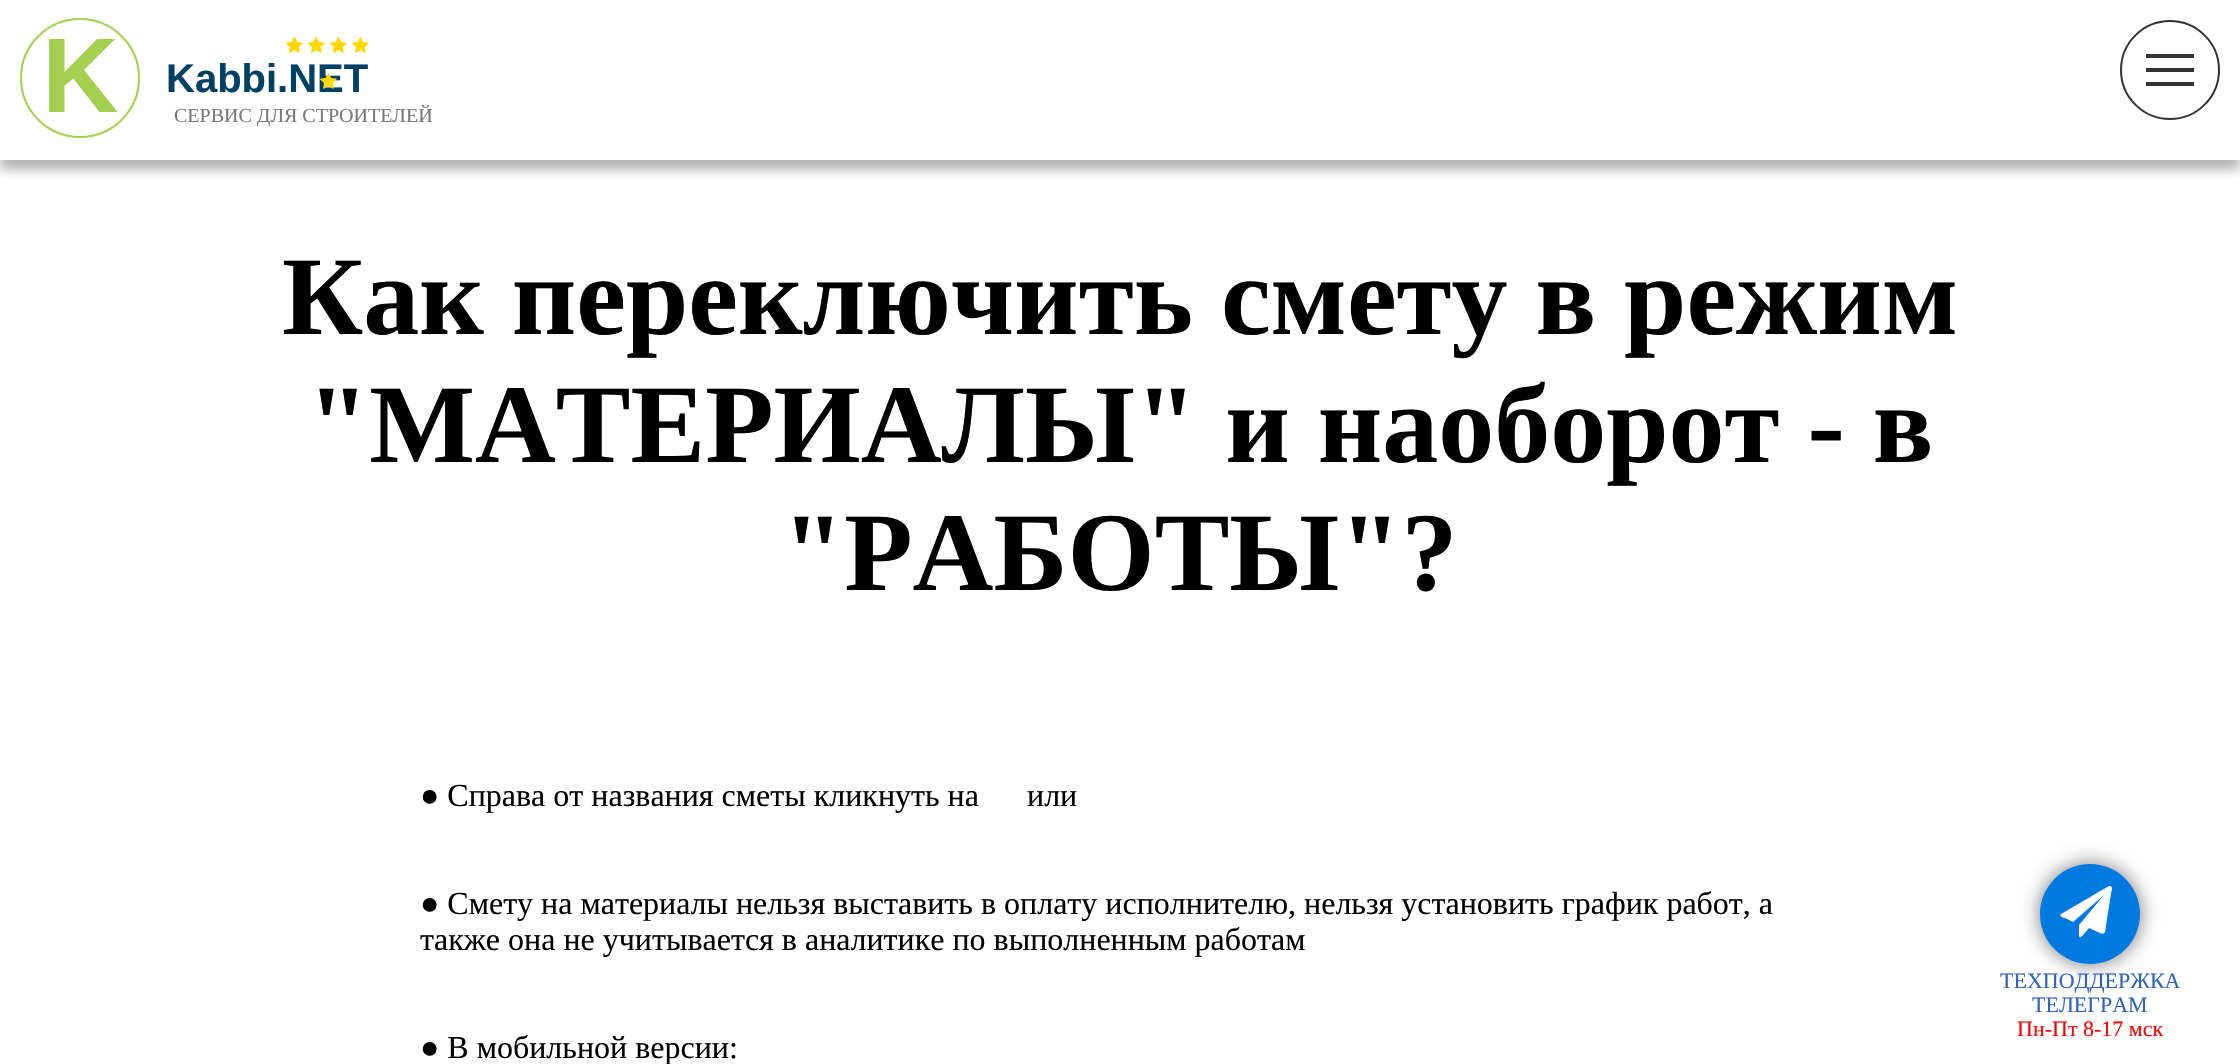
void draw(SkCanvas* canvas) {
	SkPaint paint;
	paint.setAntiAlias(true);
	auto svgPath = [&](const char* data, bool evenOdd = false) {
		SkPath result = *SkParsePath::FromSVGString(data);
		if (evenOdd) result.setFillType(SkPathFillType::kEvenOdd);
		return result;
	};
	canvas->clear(0xffffffff);
	canvas->save();
	canvas->clipRect(SkRect::MakeXYWH(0, 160, 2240, 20));
	paint.setColor(0xffb7b7b7);
	paint.setMaskFilter(SkMaskFilter::MakeBlur(kNormal_SkBlurStyle, 5));
	canvas->drawRect(SkRect::MakeXYWH(0, 10, 2240, 160), paint);
	paint.setMaskFilter(nullptr);
	canvas->restore();
	paint.setStroke(true);
	paint.setStrokeWidth(2);
	paint.setColor(0xffa4d050);
	canvas->drawCircle(80, 78, 59, paint);
	SkFont f1(fontMgr->matchFamilyStyle("Liberation Sans", SkFontStyle::Bold()), 106);
	f1.setSubpixel(true);
	paint.setStroke(false);
	canvas->drawString("K", 42, 112, f1, paint);
	canvas->drawImageRect(SkImages::DeferredFromEncodedData(SkData::MakeFromFileName("img1.png")), SkRect::MakeXYWH(286, 36, 17, 17), SkSamplingOptions());
	canvas->drawImageRect(SkImages::DeferredFromEncodedData(SkData::MakeFromFileName("img1.png")), SkRect::MakeXYWH(308, 36, 17, 17), SkSamplingOptions());
	canvas->drawImageRect(SkImages::DeferredFromEncodedData(SkData::MakeFromFileName("img1.png")), SkRect::MakeXYWH(330, 36, 17, 17), SkSamplingOptions());
	canvas->drawImageRect(SkImages::DeferredFromEncodedData(SkData::MakeFromFileName("img1.png")), SkRect::MakeXYWH(352, 36, 17, 17), SkSamplingOptions());
	SkFont f2(fontMgr->matchFamilyStyle("Liberation Sans", SkFontStyle::Bold()), 40);
	f2.setSubpixel(true);
	paint.setColor(0xff014065);
	canvas->drawString("Kabbi.NET", 166, 92, f2, paint);
	canvas->drawImageRect(SkImages::DeferredFromEncodedData(SkData::MakeFromFileName("img2.png")), SkRect::MakeXYWH(320, 72, 17, 17), SkSamplingOptions());
	SkFont f3(fontMgr->matchFamilyStyle("Liberation Serif", SkFontStyle::Normal()), 20);
	f3.setSubpixel(true);
	paint.setColor(0xff777777);
	canvas->drawString("СЕРВИС ДЛЯ СТРОИТЕЛЕЙ", 174, 122, f3, paint);
	paint.setStroke(true);
	paint.setColor(0xff333333);
	canvas->drawCircle(2170, 70, 49, paint);
	paint.setStroke(false);
	canvas->drawRect(SkRect::MakeXYWH(2146, 68, 48, 4), paint);
	canvas->drawRect(SkRect::MakeXYWH(2146, 54, 48, 4), paint);
	canvas->drawRect(SkRect::MakeXYWH(2146, 82, 48, 4), paint);
	SkFont f4(fontMgr->matchFamilyStyle("Liberation Serif", SkFontStyle::Bold()), 112);
	f4.setSubpixel(true);
	paint.setColor(0xff000000);
	canvas->drawString("Как переключить смету в режим", 282, 334, f4, paint);
	canvas->drawString("\"МАТЕРИАЛЫ\" и наоборот - в", 307, 462, f4, paint);
	canvas->drawString("\"РАБОТЫ\"?", 782, 590, f4, paint);
	SkFont f5(fontMgr->matchFamilyStyle("Liberation Serif", SkFontStyle::Normal()), 32);
	f5.setSubpixel(true);
	canvas->drawString("● Справа от названия сметы кликнуть на", 420, 806, f5, paint);
	canvas->drawString("или", 1027, 806, f5, paint);
	canvas->drawString("● Смету на материалы нельзя выставить в оплату исполнителю, нельзя установить график работ, а", 420, 914, f5, paint);
	canvas->drawString("также она не учитывается в аналитике по выполненным работам", 420, 950, f5, paint);
	canvas->drawString("● В мобильной версии:", 420, 1058, f5, paint);
	paint.setColor(0xff777777);
	paint.setMaskFilter(SkMaskFilter::MakeBlur(kNormal_SkBlurStyle, 10));
	canvas->drawRoundRect(SkRect::MakeXYWH(2040, 864, 100, 100), 50, 50, paint);
	paint.setMaskFilter(nullptr);
	paint.setColor(0xff0079e0);
	canvas->drawCircle(2090, 914, 50, paint);
	paint.setColor(0xffffffff);
	canvas->drawPath(svgPath("M2111 886L2112 888L2106 925C2105 932 2106 935 2100 933L2089 928C2078 941 2079 941 2079 925L2104 895L2073 922L2065 918C2064 918 2058 916 2061 914L2109 886Z"), paint);
	SkFont f6(fontMgr->matchFamilyStyle("Liberation Serif", SkFontStyle::Normal()), 22);
	f6.setSubpixel(true);
	paint.setColor(0xff2f62c0);
	canvas->drawString("ТЕХПОДДЕРЖКА", 2000, 988, f6, paint);
	canvas->drawString("ТЕЛЕГРАМ", 2032, 1012, f6, paint);
	paint.setColor(0xffff0000);
	canvas->drawString("Пн-Пт 8-17 мск", 2017, 1036, f6, paint);
}
